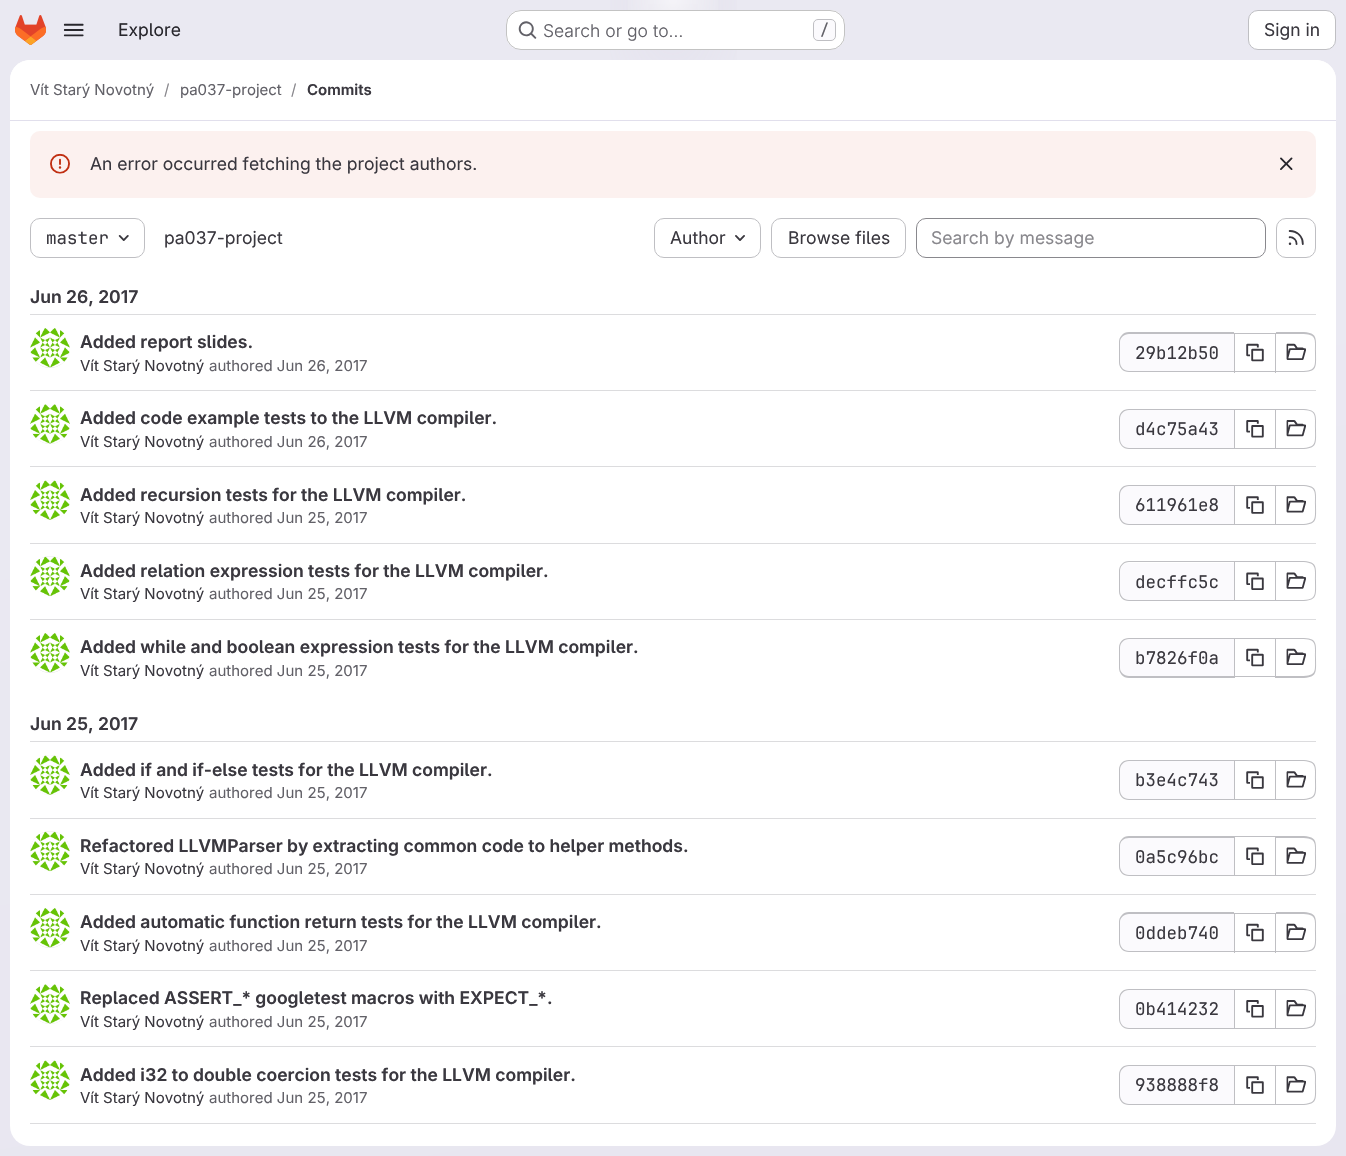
void draw(SkCanvas* canvas) {
	SkPaint paint;
	paint.setAntiAlias(true);
	auto svgPath = [&](const char* data, bool evenOdd = false) {
		SkPath result = *SkParsePath::FromSVGString(data);
		if (evenOdd) result.setFillType(SkPathFillType::kEvenOdd);
		return result;
	};
	canvas->clear(0xffffffff);
	{
		const SkColor colors[] = {0xffe8e6f0, 0xffeae9f2};
		const float stops[] = {0, 0.7};
		const SkPoint ends[] = {{792, 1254}, {554, -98}};
		paint.setShader(SkGradientShader::MakeLinear(ends, colors, stops, 2, SkTileMode::kClamp));
		paint.setAlpha(255);
	}
	canvas->drawRect(SkRect::MakeXYWH(0, 0, 1346, 1156), paint);
	{
		const SkColor colors[] = {0xffe4e2ed, 0x00e4e2ed};
		const float stops[] = {0, 0.13};
		SkMatrix m = SkMatrix::Translate(673, 0).preScale(673, 1156);
		paint.setShader(SkGradientShader::MakeRadial({0, 0}, 1, colors, stops, 2, SkTileMode::kClamp, 0, &m));
		paint.setAlpha(255);
	}
	canvas->drawRect(SkRect::MakeXYWH(610, 0, 127, 60), paint);
	{
		const SkColor colors[] = {0xffe4e2ec, 0x00e4e2ec};
		const float stops[] = {0, 0.09};
		SkMatrix m = SkMatrix::Translate(673, 0).preScale(673, 1156);
		paint.setShader(SkGradientShader::MakeRadial({0, 0}, 1, colors, stops, 2, SkTileMode::kClamp, 0, &m));
		paint.setAlpha(255);
	}
	canvas->drawRect(SkRect::MakeXYWH(648, 4, 50, 36), paint);
	{
		const SkColor colors[] = {0x99ffffff, 0x00ffffff};
		const float stops[] = {0, 0.04};
		paint.setShader(SkGradientShader::MakeRadial({673, 0}, 1338, colors, stops, 2, SkTileMode::kClamp));
		paint.setAlpha(255);
	}
	canvas->drawRect(SkRect::MakeXYWH(628, 0, 90, 45), paint);
	canvas->drawImageRect(SkImages::DeferredFromEncodedData(SkData::MakeFromFileName("img1.png")), SkRect::MakeXYWH(15, 15, 31, 30), SkSamplingOptions());
	canvas->drawImageRect(SkImages::DeferredFromEncodedData(SkData::MakeFromFileName("img2.png")), SkRect::MakeXYWH(63, 23, 21, 14), SkSamplingOptions());
	SkFont f1(fontMgr->matchFamilyStyle("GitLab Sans", SkFontStyle::Normal()), 17.5);
	f1.setSubpixel(true);
	paint.setShader(nullptr);
	paint.setColor(0xff28272d);
	canvas->drawString("Explore", 118, 36, f1, paint);
	paint.setColor(0xffffffff);
	canvas->drawRoundRect(SkRect::MakeXYWH(506, 10, 339, 40), 15, 15, paint);
	paint.setStroke(true);
	paint.setStrokeWidth(1);
	paint.setColor(0x3d050506);
	canvas->drawRoundRect(SkRect::MakeXYWH(506.5, 10.5, 338, 39), 14.5, 14.5, paint);
	canvas->drawImageRect(SkImages::DeferredFromEncodedData(SkData::MakeFromFileName("img3.png")), SkRect::MakeXYWH(518, 21, 19, 18), SkSamplingOptions());
	SkFont f2(fontMgr->matchFamilyStyle("GitLab Sans", SkFontStyle(300, SkFontStyle::kNormal_Width, SkFontStyle::kUpright_Slant)), 17.5);
	f2.setSubpixel(true);
	paint.setStroke(false);
	paint.setColor(0xff626168);
	canvas->drawString("Search or go to…", 543, 37, f2, paint);
	paint.setColor(0xfffbfafd);
	canvas->drawRoundRect(SkRect::MakeXYWH(813.5, 19.5, 22, 21), 4.5, 4.5, paint);
	paint.setStroke(true);
	paint.setColor(0xffbfbfc3);
	canvas->drawRoundRect(SkRect::MakeXYWH(813.5, 19.5, 22, 21), 4.5, 4.5, paint);
	SkFont f3(fontMgr->matchFamilyStyle("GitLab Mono", SkFontStyle(500, SkFontStyle::kNormal_Width, SkFontStyle::kUpright_Slant)), 15);
	f3.setSubpixel(true);
	paint.setStroke(false);
	paint.setColor(0xff626168);
	canvas->drawString("/", 820, 35, f3, paint);
	paint.setColor(0xffffffff);
	canvas->drawRoundRect(SkRect::MakeXYWH(1248.5, 10.5, 87, 39), 9.5, 9.5, paint);
	paint.setStroke(true);
	paint.setColor(0xffbfbfc3);
	canvas->drawRoundRect(SkRect::MakeXYWH(1248.5, 10.5, 87, 39), 9.5, 9.5, paint);
	paint.setStroke(false);
	paint.setColor(0xff3a383f);
	canvas->drawString("Sign in", 1264, 36, f1, paint);
	paint.setColor(0xffffffff);
	canvas->drawRoundRect(SkRect::MakeXYWH(10, 60, 1326, 1086), 20, 20, paint);
	canvas->drawPath(svgPath("M30 60H1316C1327 60 1336 69 1336 80V121H10V80C10 69 19 60 30 60Z"), paint);
	paint.setColor(0xffe1dfec);
	canvas->drawRect(SkRect::MakeXYWH(10, 120, 1326, 1), paint);
	SkFont f4(fontMgr->matchFamilyStyle("GitLab Sans", SkFontStyle::Normal()), 15);
	f4.setSubpixel(true);
	paint.setColor(0xff626168);
	canvas->drawString("Vít Starý Novotný", 30, 95, f4, paint);
	paint.setColor(0xff89888d);
	canvas->drawString("/", 164, 95, f4, paint);
	paint.setColor(0xff626168);
	canvas->drawString("pa037-project", 180, 95, f4, paint);
	paint.setColor(0xff89888d);
	canvas->drawString("/", 291, 95, f4, paint);
	SkFont f5(fontMgr->matchFamilyStyle("GitLab Sans", SkFontStyle(600, SkFontStyle::kNormal_Width, SkFontStyle::kUpright_Slant)), 15);
	f5.setSubpixel(true);
	paint.setColor(0xff3a383f);
	canvas->drawString("Commits", 307, 95, f5, paint);
	paint.setColor(0xfffcf1ef);
	canvas->drawRoundRect(SkRect::MakeXYWH(30, 131, 1286, 67), 10, 10, paint);
	canvas->drawImageRect(SkImages::DeferredFromEncodedData(SkData::MakeFromFileName("img4.png")), SkRect::MakeXYWH(50, 153, 20, 21), SkSamplingOptions());
	paint.setColor(0xff3a383f);
	canvas->drawString("An error occurred fetching the project authors.", 90, 170, f1, paint);
	canvas->drawImageRect(SkImages::DeferredFromEncodedData(SkData::MakeFromFileName("img5.png")), SkRect::MakeXYWH(1280, 157, 13, 13), SkSamplingOptions());
	paint.setStroke(true);
	paint.setColor(0xffbfbfc3);
	canvas->drawRoundRect(SkRect::MakeXYWH(30.5, 218.5, 114, 39), 9.5, 9.5, paint);
	SkFont f6(fontMgr->matchFamilyStyle("GitLab Mono", SkFontStyle::Normal()), 17.5);
	f6.setSubpixel(true);
	paint.setStroke(false);
	paint.setColor(0xff3a383f);
	canvas->drawString("master", 46, 244, f6, paint);
	canvas->drawImageRect(SkImages::DeferredFromEncodedData(SkData::MakeFromFileName("img6.png")), SkRect::MakeXYWH(118, 235, 11, 6), SkSamplingOptions());
	canvas->drawString("pa037-project", 164, 244, f1, paint);
	paint.setStroke(true);
	paint.setColor(0xffbfbfc3);
	canvas->drawRoundRect(SkRect::MakeXYWH(654.5, 218.5, 106, 39), 9.5, 9.5, paint);
	paint.setStroke(false);
	paint.setColor(0xff3a383f);
	canvas->drawString("Author", 670, 244, f1, paint);
	canvas->drawImageRect(SkImages::DeferredFromEncodedData(SkData::MakeFromFileName("img7.png")), SkRect::MakeXYWH(735, 235, 10, 6), SkSamplingOptions());
	paint.setStroke(true);
	paint.setColor(0xffbfbfc3);
	canvas->drawRoundRect(SkRect::MakeXYWH(771.5, 218.5, 134, 39), 9.5, 9.5, paint);
	paint.setStroke(false);
	paint.setColor(0xff3a383f);
	canvas->drawString("Browse files", 788, 244, f1, paint);
	paint.setStroke(true);
	paint.setColor(0xff89888d);
	canvas->drawRoundRect(SkRect::MakeXYWH(916.5, 218.5, 349, 39), 9.5, 9.5, paint);
	paint.setStroke(false);
	canvas->drawString("Search by message", 931, 244, f1, paint);
	paint.setStroke(true);
	paint.setColor(0xffbfbfc3);
	canvas->drawRoundRect(SkRect::MakeXYWH(1276.5, 218.5, 39, 39), 9.5, 9.5, paint);
	canvas->drawImageRect(SkImages::DeferredFromEncodedData(SkData::MakeFromFileName("img8.png")), SkRect::MakeXYWH(1288, 230, 16, 15), SkSamplingOptions());
	SkFont f7(fontMgr->matchFamilyStyle("GitLab Sans", SkFontStyle(600, SkFontStyle::kNormal_Width, SkFontStyle::kUpright_Slant)), 17.5);
	f7.setSubpixel(true);
	paint.setStroke(false);
	paint.setColor(0xff3a383f);
	canvas->drawString("Jun 26, 2017", 30, 303, f7, paint);
	paint.setColor(0xffdcdcde);
	canvas->drawRect(SkRect::MakeXYWH(30, 314, 1286, 1), paint);
	canvas->drawRect(SkRect::MakeXYWH(30, 390, 1286, 1), paint);
	paint.setStroke(true);
	paint.setColor(0xffe8e7e9);
	canvas->drawCircle(50, 348, 19.5, paint);
	canvas->drawImageRect(SkImages::DeferredFromEncodedData(SkData::MakeFromFileName("img9.png")), SkRect::MakeXYWH(30, 328, 40, 40), SkSamplingOptions());
	paint.setStroke(false);
	paint.setColor(0xff3a383f);
	canvas->drawString("Added report slides.", 80, 348, f7, paint);
	canvas->drawString("Vít Starý Novotný", 80, 371, f4, paint);
	paint.setColor(0xff626168);
	canvas->drawString("authored Jun 26, 2017", 209, 371, f4, paint);
	paint.setColor(0xfffbfafd);
	canvas->drawPath(svgPath("M1129 334H1234V371H1129C1124 371 1120 367 1120 362V343C1120 338 1124 334 1129 334Z"), paint);
	paint.setColor(0xffbfbfc3);
	canvas->drawPath(svgPath("M1129 332H1234V372H1129C1123 372 1119 368 1119 362V342C1119 337 1123 332 1129 332ZM1129 334H1234V371H1129C1124 371 1120 367 1120 362V342C1120 338 1124 334 1129 334Z", true), paint);
	paint.setColor(0xff3a383f);
	canvas->drawString("29b12b50", 1135, 359, f6, paint);
	paint.setColor(0xffbfbfc3);
	canvas->drawRect(SkRect::MakeXYWH(1235, 333, 40, 1), paint);
	canvas->drawRect(SkRect::MakeXYWH(1235, 371, 40, 1), paint);
	canvas->drawRect(SkRect::MakeXYWH(1234, 333, 1, 40), paint);
	canvas->drawImageRect(SkImages::DeferredFromEncodedData(SkData::MakeFromFileName("img10.png")), SkRect::MakeXYWH(1246, 343, 18, 19), SkSamplingOptions());
	canvas->drawPath(svgPath("M1276 332H1301C1318 332 1316 338 1316 352C1316 367 1318 372 1301 372H1276ZM1276 334H1301C1317 334 1315 339 1315 352C1315 366 1317 371 1301 371H1276Z", true), paint);
	canvas->drawRect(SkRect::MakeXYWH(1275, 333, 1, 40), paint);
	canvas->drawImageRect(SkImages::DeferredFromEncodedData(SkData::MakeFromFileName("img11.png")), SkRect::MakeXYWH(1286, 343, 20, 17), SkSamplingOptions());
	paint.setColor(0xffdcdcde);
	canvas->drawRect(SkRect::MakeXYWH(30, 466, 1286, 1), paint);
	paint.setStroke(true);
	paint.setColor(0xffe8e7e9);
	canvas->drawCircle(50, 424, 19.5, paint);
	canvas->drawImageRect(SkImages::DeferredFromEncodedData(SkData::MakeFromFileName("img12.png")), SkRect::MakeXYWH(30, 404, 40, 40), SkSamplingOptions());
	paint.setStroke(false);
	paint.setColor(0xff3a383f);
	canvas->drawString("Added code example tests to the LLVM compiler.", 80, 424, f7, paint);
	canvas->drawString("Vít Starý Novotný", 80, 447, f4, paint);
	paint.setColor(0xff626168);
	canvas->drawString("authored Jun 26, 2017", 209, 447, f4, paint);
	paint.setColor(0xfffbfafd);
	canvas->drawPath(svgPath("M1129 410H1234V448H1129C1124 448 1120 444 1120 439V419C1120 414 1124 410 1129 410Z"), paint);
	paint.setColor(0xffbfbfc3);
	canvas->drawPath(svgPath("M1129 409H1234V449H1129C1123 449 1119 444 1119 439V419C1119 413 1123 409 1129 409ZM1129 410H1234V448H1129C1124 448 1120 444 1120 439V419C1120 414 1124 410 1129 410Z", true), paint);
	paint.setColor(0xff3a383f);
	canvas->drawString("d4c75a43", 1135, 435, f6, paint);
	paint.setColor(0xffbfbfc3);
	canvas->drawRect(SkRect::MakeXYWH(1235, 409, 40, 1), paint);
	canvas->drawRect(SkRect::MakeXYWH(1235, 448, 40, 1), paint);
	canvas->drawRect(SkRect::MakeXYWH(1234, 409, 1, 40), paint);
	canvas->drawImageRect(SkImages::DeferredFromEncodedData(SkData::MakeFromFileName("img13.png")), SkRect::MakeXYWH(1246, 420, 18, 18), SkSamplingOptions());
	canvas->drawPath(svgPath("M1276 409H1301C1318 409 1316 415 1316 429C1316 443 1318 449 1301 449H1276ZM1276 410H1301C1317 410 1315 415 1315 429C1315 442 1317 448 1301 448H1276Z", true), paint);
	canvas->drawRect(SkRect::MakeXYWH(1275, 409, 1, 40), paint);
	canvas->drawImageRect(SkImages::DeferredFromEncodedData(SkData::MakeFromFileName("img14.png")), SkRect::MakeXYWH(1286, 420, 20, 17), SkSamplingOptions());
	paint.setColor(0xffdcdcde);
	canvas->drawRect(SkRect::MakeXYWH(30, 543, 1286, 1), paint);
	paint.setStroke(true);
	paint.setColor(0xffe8e7e9);
	canvas->drawCircle(50, 500, 19.5, paint);
	canvas->drawImageRect(SkImages::DeferredFromEncodedData(SkData::MakeFromFileName("img15.png")), SkRect::MakeXYWH(30, 480, 40, 40), SkSamplingOptions());
	paint.setStroke(false);
	paint.setColor(0xff3a383f);
	canvas->drawString("Added recursion tests for the LLVM compiler.", 80, 501, f7, paint);
	canvas->drawString("Vít Starý Novotný", 80, 523, f4, paint);
	paint.setColor(0xff626168);
	canvas->drawString("authored Jun 25, 2017", 209, 523, f4, paint);
	paint.setColor(0xfffbfafd);
	canvas->drawPath(svgPath("M1129 486H1234V524H1129C1124 524 1120 520 1120 515V495C1120 490 1124 486 1129 486Z"), paint);
	paint.setColor(0xffbfbfc3);
	canvas->drawPath(svgPath("M1129 485H1234V525H1129C1123 525 1119 521 1119 515V495C1119 489 1123 485 1129 485ZM1129 486H1234V524H1129C1124 524 1120 520 1120 515V495C1120 490 1124 486 1129 486Z", true), paint);
	paint.setColor(0xff3a383f);
	canvas->drawString("611961e8", 1135, 511, f6, paint);
	paint.setColor(0xffbfbfc3);
	canvas->drawRect(SkRect::MakeXYWH(1235, 485, 40, 1), paint);
	canvas->drawRect(SkRect::MakeXYWH(1235, 524, 40, 1), paint);
	canvas->drawRect(SkRect::MakeXYWH(1234, 485, 1, 40), paint);
	canvas->drawImageRect(SkImages::DeferredFromEncodedData(SkData::MakeFromFileName("img16.png")), SkRect::MakeXYWH(1246, 496, 18, 18), SkSamplingOptions());
	canvas->drawPath(svgPath("M1276 485H1301C1318 485 1316 491 1316 505C1316 519 1318 525 1301 525H1276ZM1276 486H1301C1317 486 1315 492 1315 505C1315 518 1317 524 1301 524H1276Z", true), paint);
	canvas->drawRect(SkRect::MakeXYWH(1275, 485, 1, 40), paint);
	canvas->drawImageRect(SkImages::DeferredFromEncodedData(SkData::MakeFromFileName("img17.png")), SkRect::MakeXYWH(1286, 496, 20, 17), SkSamplingOptions());
	paint.setColor(0xffdcdcde);
	canvas->drawRect(SkRect::MakeXYWH(30, 619, 1286, 1), paint);
	paint.setStroke(true);
	paint.setColor(0xffe8e7e9);
	canvas->drawCircle(50, 576, 19.5, paint);
	canvas->drawImageRect(SkImages::DeferredFromEncodedData(SkData::MakeFromFileName("img18.png")), SkRect::MakeXYWH(30, 556, 40, 41), SkSamplingOptions());
	paint.setStroke(false);
	paint.setColor(0xff3a383f);
	canvas->drawString("Added relation expression tests for the LLVM compiler.", 80, 577, f7, paint);
	canvas->drawString("Vít Starý Novotný", 80, 599, f4, paint);
	paint.setColor(0xff626168);
	canvas->drawString("authored Jun 25, 2017", 209, 599, f4, paint);
	paint.setColor(0xfffbfafd);
	canvas->drawPath(svgPath("M1129 563H1234V600H1129C1124 600 1120 596 1120 591V572C1120 567 1124 563 1129 563Z"), paint);
	paint.setColor(0xffbfbfc3);
	canvas->drawPath(svgPath("M1129 561H1234V601H1129C1123 601 1119 597 1119 591V571C1119 566 1123 561 1129 561ZM1129 562H1234V600H1129C1124 600 1120 596 1120 591V571C1120 566 1124 562 1129 562Z", true), paint);
	paint.setColor(0xff3a383f);
	canvas->drawString("decffc5c", 1135, 588, f6, paint);
	paint.setColor(0xffbfbfc3);
	canvas->drawRect(SkRect::MakeXYWH(1235, 561, 40, 1), paint);
	canvas->drawRect(SkRect::MakeXYWH(1235, 600, 40, 1), paint);
	canvas->drawRect(SkRect::MakeXYWH(1234, 561, 1, 40), paint);
	canvas->drawImageRect(SkImages::DeferredFromEncodedData(SkData::MakeFromFileName("img19.png")), SkRect::MakeXYWH(1246, 572, 18, 18), SkSamplingOptions());
	canvas->drawPath(svgPath("M1276 561H1301C1318 561 1316 567 1316 581C1316 595 1318 601 1301 601H1276ZM1276 562H1301C1317 562 1315 568 1315 581C1315 595 1317 600 1301 600H1276Z", true), paint);
	canvas->drawRect(SkRect::MakeXYWH(1275, 561, 1, 40), paint);
	canvas->drawImageRect(SkImages::DeferredFromEncodedData(SkData::MakeFromFileName("img20.png")), SkRect::MakeXYWH(1286, 572, 20, 17), SkSamplingOptions());
	paint.setStroke(true);
	paint.setColor(0xffe8e7e9);
	canvas->drawCircle(50, 653, 19.5, paint);
	canvas->drawImageRect(SkImages::DeferredFromEncodedData(SkData::MakeFromFileName("img9.png")), SkRect::MakeXYWH(30, 633, 40, 40), SkSamplingOptions());
	paint.setStroke(false);
	paint.setColor(0xff3a383f);
	canvas->drawString("Added while and boolean expression tests for the LLVM compiler.", 80, 653, f7, paint);
	canvas->drawString("Vít Starý Novotný", 80, 676, f4, paint);
	paint.setColor(0xff626168);
	canvas->drawString("authored Jun 25, 2017", 209, 676, f4, paint);
	paint.setColor(0xfffbfafd);
	canvas->drawPath(svgPath("M1129 639H1234V676H1129C1124 676 1120 672 1120 667V648C1120 643 1124 639 1129 639Z"), paint);
	paint.setColor(0xffbfbfc3);
	canvas->drawPath(svgPath("M1129 638H1234V678H1129C1123 678 1119 673 1119 668V648C1119 642 1123 638 1129 638ZM1129 639H1234V676H1129C1124 676 1120 672 1120 668V648C1120 643 1124 639 1129 639Z", true), paint);
	paint.setColor(0xff3a383f);
	canvas->drawString("b7826f0a", 1135, 664, f6, paint);
	paint.setColor(0xffbfbfc3);
	canvas->drawRect(SkRect::MakeXYWH(1235, 638, 40, 1), paint);
	canvas->drawRect(SkRect::MakeXYWH(1235, 676, 40, 1), paint);
	canvas->drawRect(SkRect::MakeXYWH(1234, 638, 1, 40), paint);
	canvas->drawImageRect(SkImages::DeferredFromEncodedData(SkData::MakeFromFileName("img10.png")), SkRect::MakeXYWH(1246, 648, 18, 19), SkSamplingOptions());
	canvas->drawPath(svgPath("M1276 638H1301C1318 638 1316 643 1316 658C1316 672 1318 678 1301 678H1276ZM1276 639H1301C1317 639 1315 644 1315 658C1315 671 1317 676 1301 676H1276Z", true), paint);
	canvas->drawRect(SkRect::MakeXYWH(1275, 638, 1, 40), paint);
	canvas->drawImageRect(SkImages::DeferredFromEncodedData(SkData::MakeFromFileName("img11.png")), SkRect::MakeXYWH(1286, 648, 20, 17), SkSamplingOptions());
	paint.setColor(0xff3a383f);
	canvas->drawString("Jun 25, 2017", 30, 730, f7, paint);
	paint.setColor(0xffdcdcde);
	canvas->drawRect(SkRect::MakeXYWH(30, 741, 1286, 1), paint);
	canvas->drawRect(SkRect::MakeXYWH(30, 818, 1286, 1), paint);
	paint.setStroke(true);
	paint.setColor(0xffe8e7e9);
	canvas->drawCircle(50, 775, 19.5, paint);
	canvas->drawImageRect(SkImages::DeferredFromEncodedData(SkData::MakeFromFileName("img21.png")), SkRect::MakeXYWH(30, 755, 40, 40), SkSamplingOptions());
	paint.setStroke(false);
	paint.setColor(0xff3a383f);
	canvas->drawString("Added if and if-else tests for the LLVM compiler.", 80, 776, f7, paint);
	canvas->drawString("Vít Starý Novotný", 80, 798, f4, paint);
	paint.setColor(0xff626168);
	canvas->drawString("authored Jun 25, 2017", 209, 798, f4, paint);
	paint.setColor(0xfffbfafd);
	canvas->drawPath(svgPath("M1129 761H1234V799H1129C1124 799 1120 795 1120 790V770C1120 765 1124 761 1129 761Z"), paint);
	paint.setColor(0xffbfbfc3);
	canvas->drawPath(svgPath("M1129 760H1234V800H1129C1123 800 1119 796 1119 790V770C1119 764 1123 760 1129 760ZM1129 761H1234V799H1129C1124 799 1120 795 1120 790V770C1120 765 1124 761 1129 761Z", true), paint);
	paint.setColor(0xff3a383f);
	canvas->drawString("b3e4c743", 1135, 786, f6, paint);
	paint.setColor(0xffbfbfc3);
	canvas->drawRect(SkRect::MakeXYWH(1235, 760, 40, 1), paint);
	canvas->drawRect(SkRect::MakeXYWH(1235, 799, 40, 1), paint);
	canvas->drawRect(SkRect::MakeXYWH(1234, 760, 1, 40), paint);
	canvas->drawImageRect(SkImages::DeferredFromEncodedData(SkData::MakeFromFileName("img16.png")), SkRect::MakeXYWH(1246, 771, 18, 18), SkSamplingOptions());
	canvas->drawPath(svgPath("M1276 760H1301C1318 760 1316 766 1316 780C1316 794 1318 800 1301 800H1276ZM1276 761H1301C1317 761 1315 767 1315 780C1315 793 1317 799 1301 799H1276Z", true), paint);
	canvas->drawRect(SkRect::MakeXYWH(1275, 760, 1, 40), paint);
	canvas->drawImageRect(SkImages::DeferredFromEncodedData(SkData::MakeFromFileName("img22.png")), SkRect::MakeXYWH(1286, 771, 20, 17), SkSamplingOptions());
	paint.setColor(0xffdcdcde);
	canvas->drawRect(SkRect::MakeXYWH(30, 894, 1286, 1), paint);
	paint.setStroke(true);
	paint.setColor(0xffe8e7e9);
	canvas->drawCircle(50, 851, 19.5, paint);
	canvas->drawImageRect(SkImages::DeferredFromEncodedData(SkData::MakeFromFileName("img23.png")), SkRect::MakeXYWH(30, 831, 40, 41), SkSamplingOptions());
	paint.setStroke(false);
	paint.setColor(0xff3a383f);
	canvas->drawString("Refactored LLVMParser by extracting common code to helper methods.", 80, 852, f7, paint);
	canvas->drawString("Vít Starý Novotný", 80, 874, f4, paint);
	paint.setColor(0xff626168);
	canvas->drawString("authored Jun 25, 2017", 209, 874, f4, paint);
	paint.setColor(0xfffbfafd);
	canvas->drawPath(svgPath("M1129 838H1234V875H1129C1124 875 1120 871 1120 866V847C1120 842 1124 838 1129 838Z"), paint);
	paint.setColor(0xffbfbfc3);
	canvas->drawPath(svgPath("M1129 836H1234V876H1129C1123 876 1119 872 1119 866V846C1119 841 1123 836 1129 836ZM1129 838H1234V875H1129C1124 875 1120 871 1120 866V846C1120 841 1124 838 1129 838Z", true), paint);
	paint.setColor(0xff3a383f);
	canvas->drawString("0a5c96bc", 1135, 863, f6, paint);
	paint.setColor(0xffbfbfc3);
	canvas->drawRect(SkRect::MakeXYWH(1235, 836, 40, 1), paint);
	canvas->drawRect(SkRect::MakeXYWH(1235, 875, 40, 1), paint);
	canvas->drawRect(SkRect::MakeXYWH(1234, 836, 1, 40), paint);
	canvas->drawImageRect(SkImages::DeferredFromEncodedData(SkData::MakeFromFileName("img19.png")), SkRect::MakeXYWH(1246, 847, 18, 18), SkSamplingOptions());
	canvas->drawPath(svgPath("M1276 836H1301C1318 836 1316 842 1316 856C1316 870 1318 876 1301 876H1276ZM1276 838H1301C1317 838 1315 843 1315 856C1315 870 1317 875 1301 875H1276Z", true), paint);
	canvas->drawRect(SkRect::MakeXYWH(1275, 836, 1, 40), paint);
	canvas->drawImageRect(SkImages::DeferredFromEncodedData(SkData::MakeFromFileName("img20.png")), SkRect::MakeXYWH(1286, 847, 20, 17), SkSamplingOptions());
	paint.setColor(0xffdcdcde);
	canvas->drawRect(SkRect::MakeXYWH(30, 970, 1286, 1), paint);
	paint.setStroke(true);
	paint.setColor(0xffe8e7e9);
	canvas->drawCircle(50, 928, 19.5, paint);
	canvas->drawImageRect(SkImages::DeferredFromEncodedData(SkData::MakeFromFileName("img9.png")), SkRect::MakeXYWH(30, 908, 40, 40), SkSamplingOptions());
	paint.setStroke(false);
	paint.setColor(0xff3a383f);
	canvas->drawString("Added automatic function return tests for the LLVM compiler.", 80, 928, f7, paint);
	canvas->drawString("Vít Starý Novotný", 80, 951, f4, paint);
	paint.setColor(0xff626168);
	canvas->drawString("authored Jun 25, 2017", 209, 951, f4, paint);
	paint.setColor(0xfffbfafd);
	canvas->drawPath(svgPath("M1129 914H1234V951H1129C1124 951 1120 947 1120 942V923C1120 918 1124 914 1129 914Z"), paint);
	paint.setColor(0xffbfbfc3);
	canvas->drawPath(svgPath("M1129 912H1234V952H1129C1123 952 1119 948 1119 942V922C1119 917 1123 912 1129 912ZM1129 914H1234V951H1129C1124 951 1120 947 1120 942V922C1120 918 1124 914 1129 914Z", true), paint);
	paint.setColor(0xff3a383f);
	canvas->drawString("0ddeb740", 1135, 939, f6, paint);
	paint.setColor(0xffbfbfc3);
	canvas->drawRect(SkRect::MakeXYWH(1235, 913, 40, 1), paint);
	canvas->drawRect(SkRect::MakeXYWH(1235, 951, 40, 1), paint);
	canvas->drawRect(SkRect::MakeXYWH(1234, 913, 1, 40), paint);
	canvas->drawImageRect(SkImages::DeferredFromEncodedData(SkData::MakeFromFileName("img10.png")), SkRect::MakeXYWH(1246, 923, 18, 19), SkSamplingOptions());
	canvas->drawPath(svgPath("M1276 912H1301C1318 912 1316 918 1316 932C1316 947 1318 952 1301 952H1276ZM1276 914H1301C1317 914 1315 919 1315 932C1315 946 1317 951 1301 951H1276Z", true), paint);
	canvas->drawRect(SkRect::MakeXYWH(1275, 913, 1, 40), paint);
	canvas->drawImageRect(SkImages::DeferredFromEncodedData(SkData::MakeFromFileName("img11.png")), SkRect::MakeXYWH(1286, 923, 20, 17), SkSamplingOptions());
	paint.setColor(0xffdcdcde);
	canvas->drawRect(SkRect::MakeXYWH(30, 1046, 1286, 1), paint);
	paint.setStroke(true);
	paint.setColor(0xffe8e7e9);
	canvas->drawCircle(50, 1004, 19.5, paint);
	canvas->drawImageRect(SkImages::DeferredFromEncodedData(SkData::MakeFromFileName("img24.png")), SkRect::MakeXYWH(30, 984, 40, 40), SkSamplingOptions());
	paint.setStroke(false);
	paint.setColor(0xff3a383f);
	canvas->drawString("Replaced ASSERT_* googletest macros with EXPECT_*.", 80, 1004, f7, paint);
	canvas->drawString("Vít Starý Novotný", 80, 1027, f4, paint);
	paint.setColor(0xff626168);
	canvas->drawString("authored Jun 25, 2017", 209, 1027, f4, paint);
	paint.setColor(0xfffbfafd);
	canvas->drawPath(svgPath("M1129 990H1234V1028H1129C1124 1028 1120 1024 1120 1019V999C1120 994 1124 990 1129 990Z"), paint);
	paint.setColor(0xffbfbfc3);
	canvas->drawPath(svgPath("M1129 989H1234V1029H1129C1123 1029 1119 1024 1119 1019V999C1119 993 1123 989 1129 989ZM1129 990H1234V1028H1129C1124 1028 1120 1024 1120 1019V999C1120 994 1124 990 1129 990Z", true), paint);
	paint.setColor(0xff3a383f);
	canvas->drawString("0b414232", 1135, 1015, f6, paint);
	paint.setColor(0xffbfbfc3);
	canvas->drawRect(SkRect::MakeXYWH(1235, 989, 40, 1), paint);
	canvas->drawRect(SkRect::MakeXYWH(1235, 1028, 40, 1), paint);
	canvas->drawRect(SkRect::MakeXYWH(1234, 989, 1, 40), paint);
	canvas->drawImageRect(SkImages::DeferredFromEncodedData(SkData::MakeFromFileName("img13.png")), SkRect::MakeXYWH(1246, 1000, 18, 18), SkSamplingOptions());
	canvas->drawPath(svgPath("M1276 989H1301C1318 989 1316 995 1316 1009C1316 1023 1318 1029 1301 1029H1276ZM1276 990H1301C1317 990 1315 995 1315 1009C1315 1022 1317 1028 1301 1028H1276Z", true), paint);
	canvas->drawRect(SkRect::MakeXYWH(1275, 989, 1, 40), paint);
	canvas->drawImageRect(SkImages::DeferredFromEncodedData(SkData::MakeFromFileName("img14.png")), SkRect::MakeXYWH(1286, 1000, 20, 17), SkSamplingOptions());
	paint.setColor(0xffdcdcde);
	canvas->drawRect(SkRect::MakeXYWH(30, 1123, 1286, 1), paint);
	paint.setStroke(true);
	paint.setColor(0xffe8e7e9);
	canvas->drawCircle(50, 1080, 19.5, paint);
	canvas->drawImageRect(SkImages::DeferredFromEncodedData(SkData::MakeFromFileName("img25.png")), SkRect::MakeXYWH(30, 1060, 40, 40), SkSamplingOptions());
	paint.setStroke(false);
	paint.setColor(0xff3a383f);
	canvas->drawString("Added i32 to double coercion tests for the LLVM compiler.", 80, 1081, f7, paint);
	canvas->drawString("Vít Starý Novotný", 80, 1103, f4, paint);
	paint.setColor(0xff626168);
	canvas->drawString("authored Jun 25, 2017", 209, 1103, f4, paint);
	paint.setColor(0xfffbfafd);
	canvas->drawPath(svgPath("M1129 1066H1234V1104H1129C1124 1104 1120 1100 1120 1095V1075C1120 1070 1124 1066 1129 1066Z"), paint);
	paint.setColor(0xffbfbfc3);
	canvas->drawPath(svgPath("M1129 1065H1234V1105H1129C1123 1105 1119 1101 1119 1095V1075C1119 1069 1123 1065 1129 1065ZM1129 1066H1234V1104H1129C1124 1104 1120 1100 1120 1095V1075C1120 1070 1124 1066 1129 1066Z", true), paint);
	paint.setColor(0xff3a383f);
	canvas->drawString("938888f8", 1135, 1091, f6, paint);
	paint.setColor(0xffbfbfc3);
	canvas->drawRect(SkRect::MakeXYWH(1235, 1065, 40, 1), paint);
	canvas->drawRect(SkRect::MakeXYWH(1235, 1104, 40, 1), paint);
	canvas->drawRect(SkRect::MakeXYWH(1234, 1065, 1, 40), paint);
	canvas->drawImageRect(SkImages::DeferredFromEncodedData(SkData::MakeFromFileName("img26.png")), SkRect::MakeXYWH(1246, 1076, 18, 18), SkSamplingOptions());
	canvas->drawPath(svgPath("M1276 1065H1301C1318 1065 1316 1071 1316 1085C1316 1099 1318 1105 1301 1105H1276ZM1276 1066H1301C1317 1066 1315 1072 1315 1085C1315 1098 1317 1104 1301 1104H1276Z", true), paint);
	canvas->drawRect(SkRect::MakeXYWH(1275, 1065, 1, 40), paint);
	canvas->drawImageRect(SkImages::DeferredFromEncodedData(SkData::MakeFromFileName("img27.png")), SkRect::MakeXYWH(1286, 1076, 20, 17), SkSamplingOptions());
}
